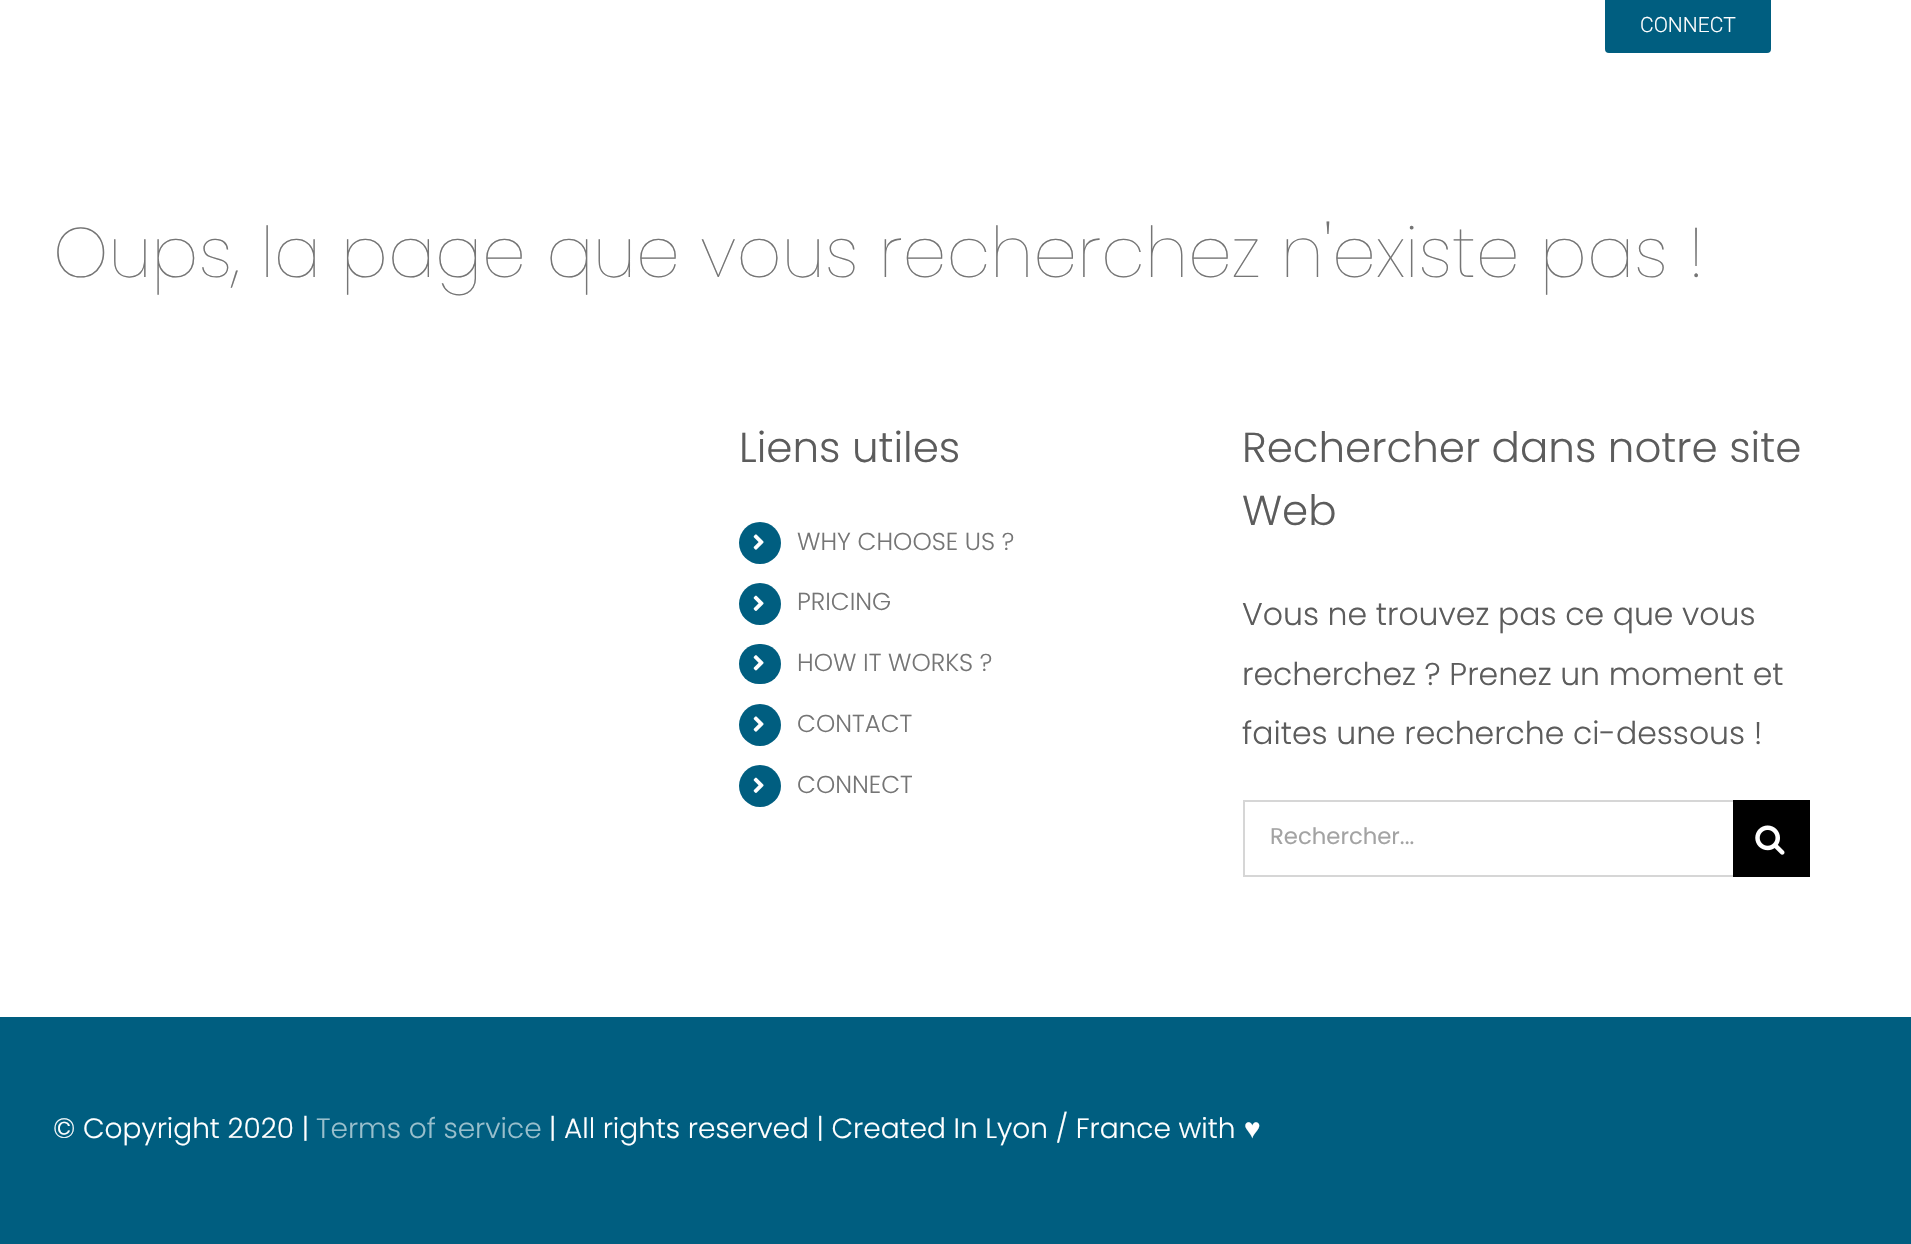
void draw(SkCanvas* canvas) {
	SkPaint paint;
	paint.setAntiAlias(true);
	canvas->clear(0xffffffff);
	paint.setColor(0xff005e80);
	canvas->drawRoundRect(SkRect::MakeXYWH(1605, -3, 166, 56), 4, 4, paint);
	SkFont f1(fontMgr->matchFamilyStyle("Roboto", SkFontStyle(300, SkFontStyle::kNormal_Width, SkFontStyle::kUpright_Slant)), 21);
	f1.setSubpixel(true);
	paint.setColor(0xffffffff);
	canvas->drawString("CONNECT", 1640, 32, f1, paint);
	SkFont f2(fontMgr->matchFamilyStyle("Poppins", SkFontStyle(100, SkFontStyle::kNormal_Width, SkFontStyle::kUpright_Slant)), 70);
	f2.setSubpixel(true);
	paint.setColor(0xff757575);
	canvas->drawString("Oups, la page que vous recherchez n'existe pas !", 53, 277, f2, paint);
	SkFont f3(fontMgr->matchFamilyStyle("Poppins", SkFontStyle(300, SkFontStyle::kNormal_Width, SkFontStyle::kUpright_Slant)), 42);
	f3.setSubpixel(true);
	paint.setColor(0xff5c5c5c);
	canvas->drawString("Liens utiles", 739, 462, f3, paint);
	paint.setColor(0xff005e80);
	canvas->drawCircle(760, 543, 21, paint);
	canvas->drawImageRect(SkImages::DeferredFromEncodedData(SkData::MakeFromFileName("img1.png")), SkRect::MakeXYWH(753, 534, 11, 16), SkSamplingOptions());
	SkFont f4(fontMgr->matchFamilyStyle("Poppins", SkFontStyle(300, SkFontStyle::kNormal_Width, SkFontStyle::kUpright_Slant)), 24.5);
	f4.setSubpixel(true);
	paint.setColor(0xff757575);
	canvas->drawString("WHY CHOOSE US ?", 797, 550, f4, paint);
	paint.setColor(0xff005e80);
	canvas->drawCircle(760, 604, 21, paint);
	canvas->drawImageRect(SkImages::DeferredFromEncodedData(SkData::MakeFromFileName("img2.png")), SkRect::MakeXYWH(753, 595, 11, 16), SkSamplingOptions());
	paint.setColor(0xff757575);
	canvas->drawString("PRICING", 797, 610, f4, paint);
	paint.setColor(0xff005e80);
	canvas->drawRoundRect(SkRect::MakeXYWH(739, 644, 42, 40), 20, 20, paint);
	canvas->drawImageRect(SkImages::DeferredFromEncodedData(SkData::MakeFromFileName("img3.png")), SkRect::MakeXYWH(753, 655, 11, 16), SkSamplingOptions());
	paint.setColor(0xff757575);
	canvas->drawString("HOW IT WORKS ?", 797, 671, f4, paint);
	paint.setColor(0xff005e80);
	canvas->drawCircle(760, 725, 21, paint);
	canvas->drawImageRect(SkImages::DeferredFromEncodedData(SkData::MakeFromFileName("img1.png")), SkRect::MakeXYWH(753, 716, 11, 16), SkSamplingOptions());
	paint.setColor(0xff757575);
	canvas->drawString("CONTACT", 797, 732, f4, paint);
	paint.setColor(0xff005e80);
	canvas->drawCircle(760, 786, 21, paint);
	canvas->drawImageRect(SkImages::DeferredFromEncodedData(SkData::MakeFromFileName("img2.png")), SkRect::MakeXYWH(753, 777, 11, 16), SkSamplingOptions());
	paint.setColor(0xff757575);
	canvas->drawString("CONNECT", 797, 793, f4, paint);
	paint.setColor(0xff5c5c5c);
	canvas->drawString("Rechercher dans notre site", 1242, 462, f3, paint);
	canvas->drawString("Web", 1242, 525, f3, paint);
	SkFont f5(fontMgr->matchFamilyStyle("Poppins", SkFontStyle(300, SkFontStyle::kNormal_Width, SkFontStyle::kUpright_Slant)), 31.5);
	f5.setSubpixel(true);
	canvas->drawString("Vous ne trouvez pas ce que vous", 1242, 625, f5, paint);
	canvas->drawString("recherchez ? Prenez un moment et", 1242, 685, f5, paint);
	canvas->drawString("faites une recherche ci-dessous !", 1242, 744, f5, paint);
	paint.setColor(0xffd6d6d6);
	canvas->drawRect(SkRect::MakeXYWH(1243, 800, 490, 2), paint);
	canvas->drawRect(SkRect::MakeXYWH(1243, 875, 490, 2), paint);
	canvas->drawRect(SkRect::MakeXYWH(1243, 800, 2, 77), paint);
	SkFont f6(fontMgr->matchFamilyStyle("Poppins", SkFontStyle::Normal()), 22.75);
	f6.setSubpixel(true);
	paint.setColor(0xffa3a3a3);
	canvas->drawString("Rechercher...", 1270, 844, f6, paint);
	paint.setColor(0xff000000);
	canvas->drawRect(SkRect::MakeXYWH(1733, 800, 77, 77), paint);
	canvas->drawImageRect(SkImages::DeferredFromEncodedData(SkData::MakeFromFileName("img4.png")), SkRect::MakeXYWH(1755, 825, 30, 30), SkSamplingOptions());
	paint.setColor(0xff005e80);
	canvas->drawRect(SkRect::MakeXYWH(0, 1017, 1911, 227), paint);
	SkFont f7(fontMgr->matchFamilyStyle("Poppins", SkFontStyle(300, SkFontStyle::kNormal_Width, SkFontStyle::kUpright_Slant)), 28);
	f7.setSubpixel(true);
	paint.setColor(0xffffffff);
	canvas->drawString("© Copyright 2020 |", 53, 1138, f7, paint);
	paint.setColor(0xff99bfcc);
	canvas->drawString("Terms of service", 316, 1138, f7, paint);
	paint.setColor(0xffffffff);
	canvas->drawString("| All rights reserved | Created In Lyon / France with", 549, 1138, f7, paint);
	SkFont f8(fontMgr->matchFamilyStyle("Liberation Serif", SkFontStyle::Normal()), 28);
	f8.setSubpixel(true);
	canvas->drawString("♥", 1244, 1138, f8, paint);
}
